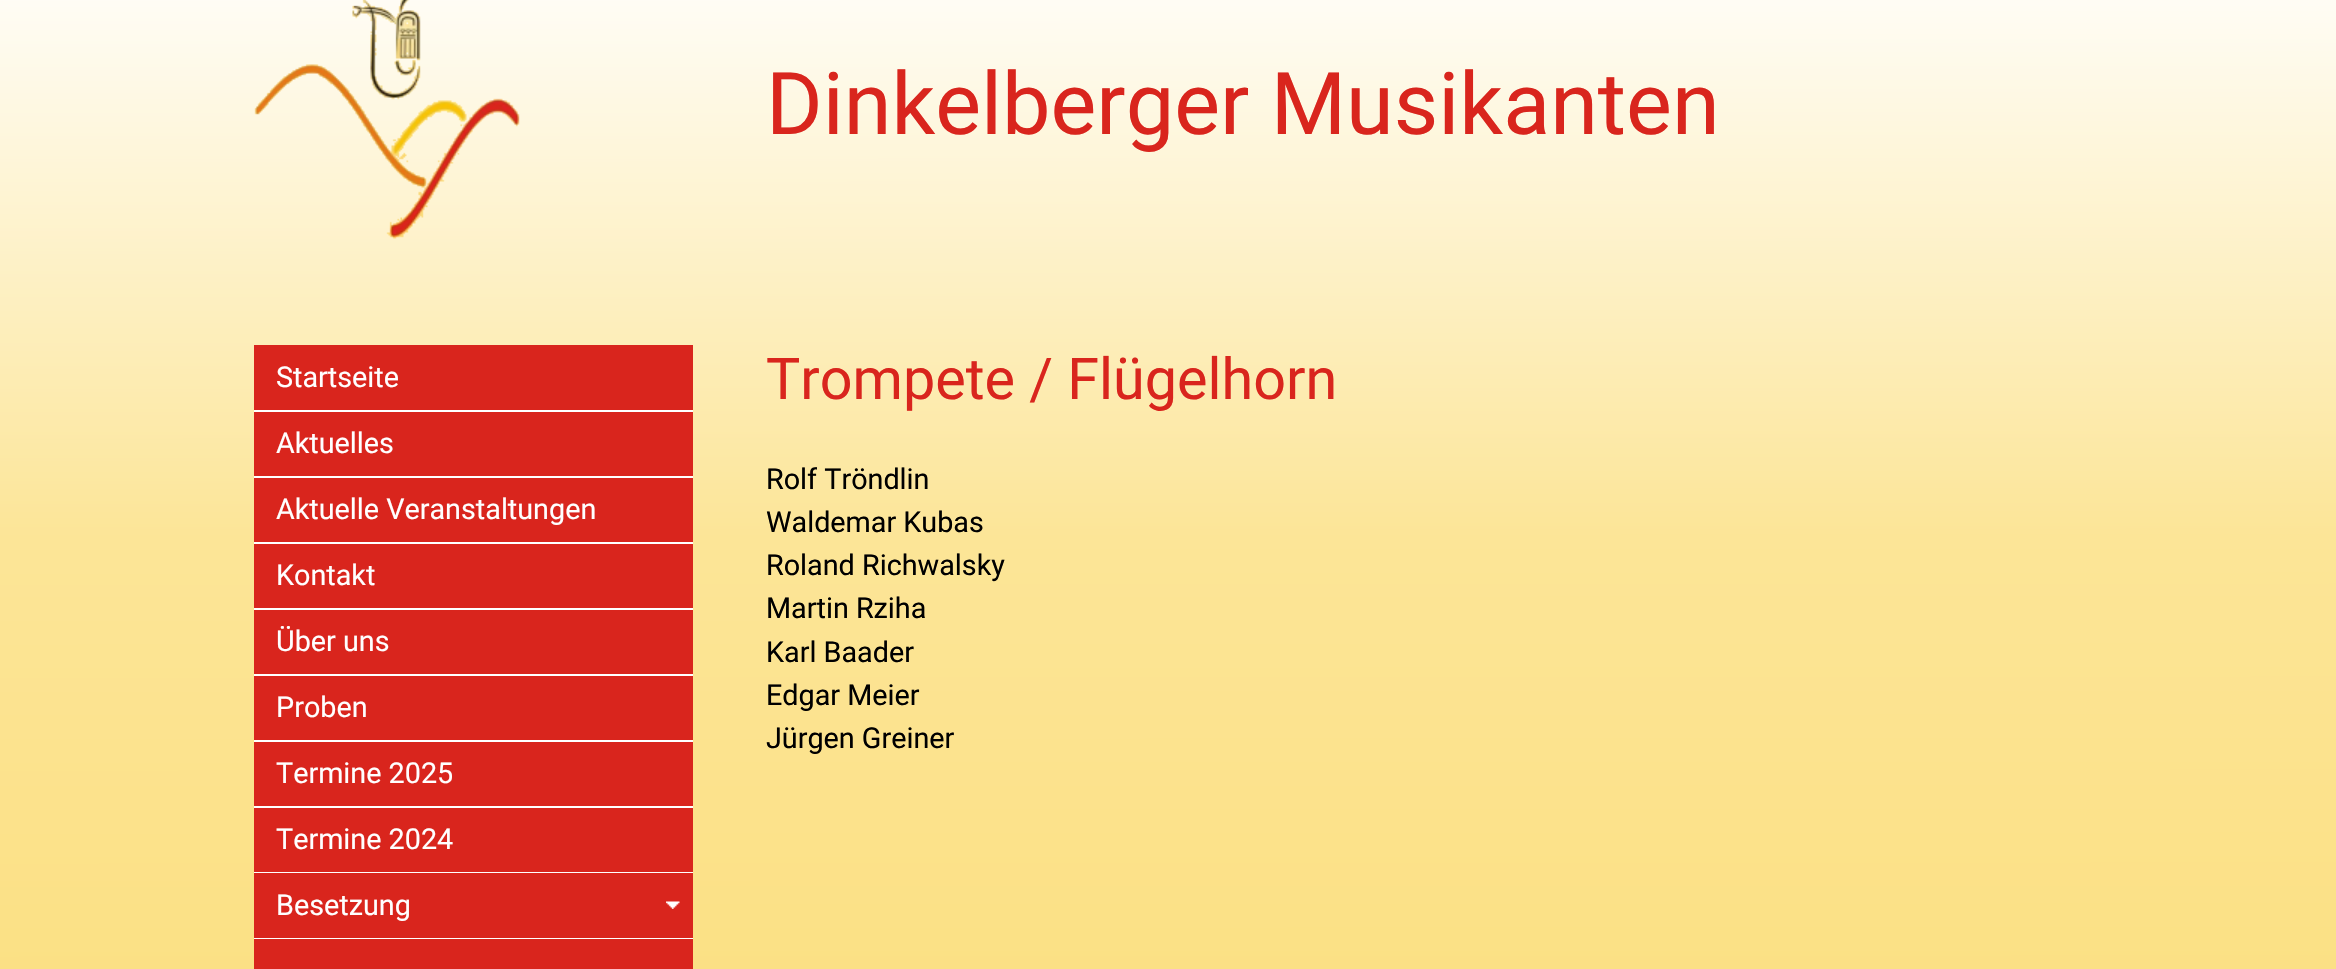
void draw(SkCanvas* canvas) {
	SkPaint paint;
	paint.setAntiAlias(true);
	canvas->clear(0xffffffff);
	{
		const SkColor colors[] = {0xffffffff, 0xfffce597, 0xfffad65c};
		const float stops[] = {0, 0.3, 1};
		const SkPoint ends[] = {{1168, -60}, {1169, 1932}};
		paint.setShader(SkGradientShader::MakeLinear(ends, colors, stops, 3, SkTileMode::kClamp));
		paint.setAlpha(255);
	}
	canvas->drawRect(SkRect::MakeXYWH(0, 0, 2336, 969), paint);
	canvas->drawImageRect(SkImages::DeferredFromEncodedData(SkData::MakeFromFileName("img1.png")), SkRect::MakeXYWH(254, 0, 266, 239), SkSamplingOptions());
	SkFont f1(fontMgr->matchFamilyStyle("Roboto", SkFontStyle::Normal()), 86.4);
	f1.setSubpixel(true);
	paint.setShader(nullptr);
	paint.setColor(0xffd9251d);
	canvas->drawString("Dinkelberger Musikanten", 766, 134, f1, paint);
	canvas->drawRect(SkRect::MakeXYWH(254, 345, 439, 527), paint);
	paint.setColor(0xffffffff);
	canvas->drawRect(SkRect::MakeXYWH(254, 410, 439, 2), paint);
	SkFont f2(fontMgr->matchFamilyStyle("Roboto", SkFontStyle::Normal()), 28.75);
	f2.setSubpixel(true);
	canvas->drawString("Startseite", 276, 387, f2, paint);
	canvas->drawRect(SkRect::MakeXYWH(254, 476, 439, 2), paint);
	canvas->drawString("Aktuelles", 276, 453, f2, paint);
	canvas->drawRect(SkRect::MakeXYWH(254, 542, 439, 2), paint);
	canvas->drawString("Aktuelle Veranstaltungen", 276, 519, f2, paint);
	canvas->drawRect(SkRect::MakeXYWH(254, 608, 439, 2), paint);
	canvas->drawString("Kontakt", 276, 585, f2, paint);
	canvas->drawRect(SkRect::MakeXYWH(254, 674, 439, 2), paint);
	canvas->drawString("Über uns", 276, 651, f2, paint);
	canvas->drawRect(SkRect::MakeXYWH(254, 740, 439, 2), paint);
	canvas->drawString("Proben", 276, 717, f2, paint);
	canvas->drawRect(SkRect::MakeXYWH(254, 806, 439, 2), paint);
	canvas->drawString("Termine 2025", 276, 783, f2, paint);
	canvas->drawRect(SkRect::MakeXYWH(254, 872, 439, 1), paint);
	canvas->drawString("Termine 2024", 276, 849, f2, paint);
	paint.setColor(0xffd9251d);
	canvas->drawRect(SkRect::MakeXYWH(254, 873, 439, 65), paint);
	canvas->drawImageRect(SkImages::DeferredFromEncodedData(SkData::MakeFromFileName("img2.png")), SkRect::MakeXYWH(666, 901, 14, 8), SkSamplingOptions());
	paint.setColor(0xffffffff);
	canvas->drawRect(SkRect::MakeXYWH(254, 938, 439, 1), paint);
	canvas->drawString("Besetzung", 276, 915, f2, paint);
	paint.setColor(0xffd9251d);
	canvas->drawRect(SkRect::MakeXYWH(254, 939, 439, 30), paint);
	SkFont f3(fontMgr->matchFamilyStyle("Roboto", SkFontStyle::Normal()), 57.5);
	f3.setSubpixel(true);
	canvas->drawString("Trompete / Flügelhorn", 766, 399, f3, paint);
	paint.setColor(0xff000000);
	canvas->drawString("Rolf Tröndlin", 766, 489, f2, paint);
	canvas->drawString("Waldemar Kubas", 766, 532, f2, paint);
	canvas->drawString("Roland Richwalsky", 766, 575, f2, paint);
	canvas->drawString("Martin Rziha", 766, 618, f2, paint);
	canvas->drawString("Karl Baader", 766, 662, f2, paint);
	canvas->drawString("Edgar Meier", 766, 705, f2, paint);
	canvas->drawString("Jürgen Greiner", 766, 748, f2, paint);
}
